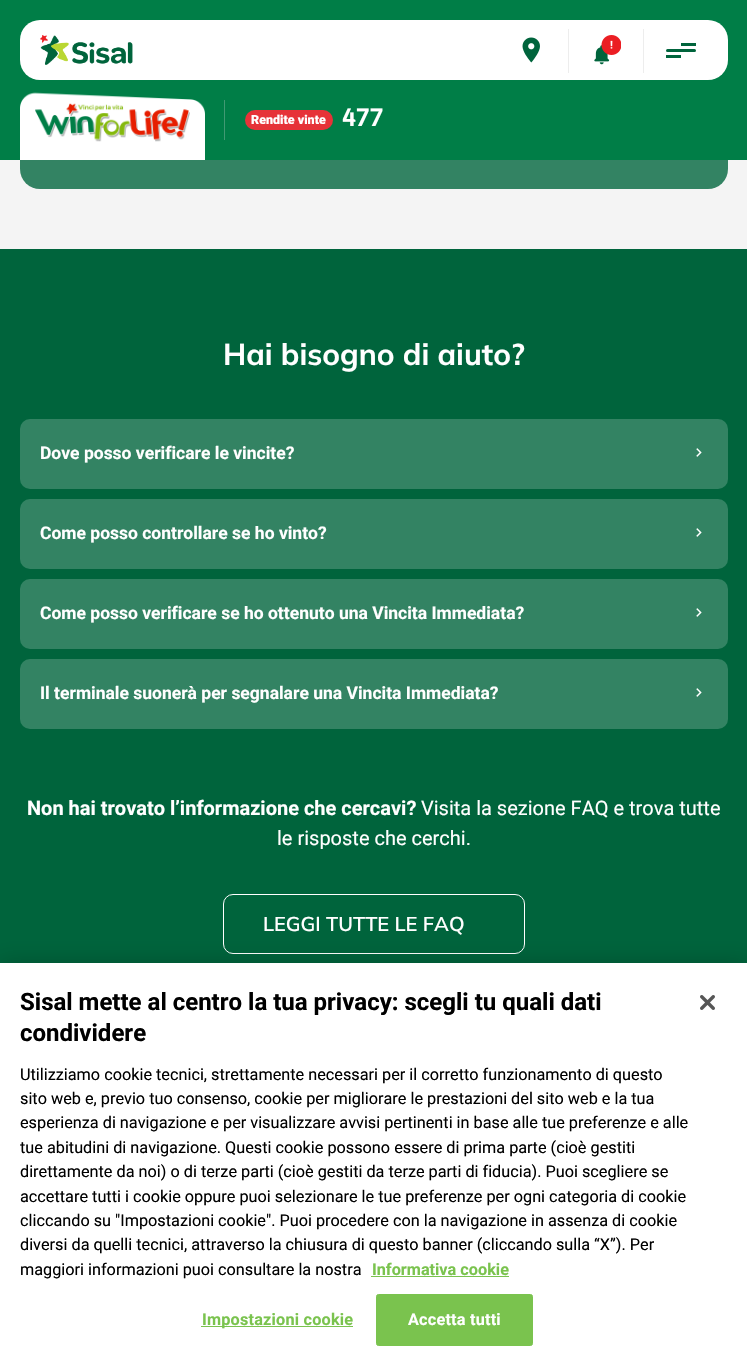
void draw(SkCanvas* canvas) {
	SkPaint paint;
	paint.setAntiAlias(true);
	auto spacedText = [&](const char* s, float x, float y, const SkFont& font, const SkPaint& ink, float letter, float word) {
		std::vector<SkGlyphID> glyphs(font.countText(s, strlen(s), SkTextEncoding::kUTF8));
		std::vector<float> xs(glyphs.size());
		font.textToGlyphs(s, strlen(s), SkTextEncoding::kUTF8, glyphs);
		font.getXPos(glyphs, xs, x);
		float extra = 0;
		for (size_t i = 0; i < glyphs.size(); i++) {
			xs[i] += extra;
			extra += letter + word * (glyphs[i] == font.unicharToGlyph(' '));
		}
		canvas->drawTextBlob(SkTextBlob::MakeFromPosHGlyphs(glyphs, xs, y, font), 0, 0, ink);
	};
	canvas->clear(0xfff4f4f4);
	paint.setColor(0xff338363);
	canvas->drawRoundRect(SkRect::MakeXYWH(20, -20, 708, 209), 20, 20, paint);
	paint.setColor(0xff007e47);
	canvas->drawRect(SkRect::MakeXYWH(0, 0, 747, 160), paint);
	paint.setColor(0xffffffff);
	canvas->drawRoundRect(SkRect::MakeXYWH(20, 20, 708, 60), 20, 20, paint);
	canvas->drawImageRect(SkImages::DeferredFromEncodedData(SkData::MakeFromFileName("img1.png")), SkRect::MakeXYWH(40, 35, 93, 30), SkSamplingOptions());
	paint.setColor(0xffededed);
	canvas->drawRect(SkRect::MakeXYWH(568, 29, 1, 44), paint);
	canvas->drawImageRect(SkImages::DeferredFromEncodedData(SkData::MakeFromFileName("img2.png")), SkRect::MakeXYWH(522, 37, 18, 26), SkSamplingOptions());
	canvas->drawRect(SkRect::MakeXYWH(643, 29, 1, 44), paint);
	canvas->drawImageRect(SkImages::DeferredFromEncodedData(SkData::MakeFromFileName("img3.png")), SkRect::MakeXYWH(594, 35, 27, 30), SkSamplingOptions());
	paint.setColor(0xff00643c);
	canvas->drawRoundRect(SkRect::MakeXYWH(666, 49, 30, 3), 1.5, 1.5, paint);
	canvas->drawRect(SkRect::MakeXYWH(681, 43, 15, 3), paint);
	canvas->drawRect(SkRect::MakeXYWH(666, 55, 15, 3), paint);
	canvas->drawImageRect(SkImages::DeferredFromEncodedData(SkData::MakeFromFileName("img4.png")), SkRect::MakeXYWH(20, 92, 185, 68), SkSamplingOptions());
	paint.setColor(0xff419973);
	canvas->drawRect(SkRect::MakeXYWH(224, 100, 1, 40), paint);
	paint.setColor(0xffe63238);
	canvas->drawRoundRect(SkRect::MakeXYWH(245, 110, 88, 20), 10, 10, paint);
	SkFont f1(fontMgr->matchFamilyStyle("Roboto", SkFontStyle(900, SkFontStyle::kNormal_Width, SkFontStyle::kUpright_Slant)), 12.5);
	f1.setSubpixel(true);
	paint.setColor(0xffffffff);
	canvas->drawString("Rendite vinte", 251, 124, f1, paint);
	SkFont f2(fontMgr->matchFamilyStyle("Sansation", SkFontStyle::Bold()), 25);
	f2.setSubpixel(true);
	canvas->drawString("477", 342, 126, f2, paint);
	paint.setColor(0xff00643c);
	canvas->drawRect(SkRect::MakeXYWH(0, 249, 747, 714), paint);
	SkFont f3(fontMgr->matchFamilyStyle("Mulish", SkFontStyle::Bold()), 30);
	f3.setSubpixel(true);
	paint.setColor(0xffffffff);
	canvas->drawString("Hai bisogno di aiuto?", 223, 365, f3, paint);
	paint.setColor(0xff338363);
	canvas->drawRoundRect(SkRect::MakeXYWH(20, 419, 708, 70), 10, 10, paint);
	SkFont f4(fontMgr->matchFamilyStyle("Roboto", SkFontStyle::Bold()), 17.5);
	f4.setSubpixel(true);
	paint.setColor(0xffffffff);
	canvas->drawString("Dove posso verificare le vincite?", 40, 459, f4, paint);
	canvas->drawImageRect(SkImages::DeferredFromEncodedData(SkData::MakeFromFileName("img5.png")), SkRect::MakeXYWH(696, 448, 6, 9), SkSamplingOptions());
	paint.setColor(0xff338363);
	canvas->drawRoundRect(SkRect::MakeXYWH(20, 499, 708, 70), 10, 10, paint);
	paint.setColor(0xffffffff);
	canvas->drawString("Come posso controllare se ho vinto?", 40, 539, f4, paint);
	canvas->drawImageRect(SkImages::DeferredFromEncodedData(SkData::MakeFromFileName("img5.png")), SkRect::MakeXYWH(696, 528, 6, 9), SkSamplingOptions());
	paint.setColor(0xff338363);
	canvas->drawRoundRect(SkRect::MakeXYWH(20, 579, 708, 70), 10, 10, paint);
	paint.setColor(0xffffffff);
	canvas->drawString("Come posso verificare se ho ottenuto una Vincita Immediata?", 40, 619, f4, paint);
	canvas->drawImageRect(SkImages::DeferredFromEncodedData(SkData::MakeFromFileName("img5.png")), SkRect::MakeXYWH(696, 608, 6, 9), SkSamplingOptions());
	paint.setColor(0xff338363);
	canvas->drawRoundRect(SkRect::MakeXYWH(20, 659, 708, 70), 10, 10, paint);
	paint.setColor(0xffffffff);
	canvas->drawString("Il terminale suonerà per segnalare una Vincita Immediata?", 40, 699, f4, paint);
	canvas->drawImageRect(SkImages::DeferredFromEncodedData(SkData::MakeFromFileName("img5.png")), SkRect::MakeXYWH(696, 688, 6, 9), SkSamplingOptions());
	SkFont f5(fontMgr->matchFamilyStyle("Roboto", SkFontStyle::Bold()), 20);
	f5.setSubpixel(true);
	canvas->drawString("Non hai trovato l’informazione che cercavi?", 27, 815, f5, paint);
	SkFont f6(fontMgr->matchFamilyStyle("Roboto", SkFontStyle::Normal()), 20);
	f6.setSubpixel(true);
	canvas->drawString("Visita la sezione FAQ e trova tutte", 421, 815, f6, paint);
	canvas->drawString("le risposte che cerchi.", 277, 845, f6, paint);
	paint.setStroke(true);
	paint.setStrokeWidth(1);
	canvas->drawRoundRect(SkRect::MakeXYWH(223.5, 894.5, 301, 59), 9.5, 9.5, paint);
	SkFont f7(fontMgr->matchFamilyStyle("Mulish", SkFontStyle(600, SkFontStyle::kNormal_Width, SkFontStyle::kUpright_Slant)), 20);
	f7.setSubpixel(true);
	paint.setStroke(false);
	canvas->drawString("LEGGI TUTTE LE FAQ", 263, 931, f7, paint);
	paint.setColor(0x33000000);
	paint.setMaskFilter(SkMaskFilter::MakeBlur(kNormal_SkBlurStyle, 11));
	canvas->drawRect(SkRect::MakeXYWH(0, 963, 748, 403), paint);
	paint.setMaskFilter(nullptr);
	paint.setColor(0xffffffff);
	canvas->drawRect(SkRect::MakeXYWH(0, 963, 747, 403), paint);
	SkFont f8(fontMgr->matchFamilyStyle("Roboto", SkFontStyle::Bold()), 24);
	f8.setSubpixel(true);
	paint.setColor(0xff000000);
	canvas->drawString("Sisal mette al centro la tua privacy: scegli tu quali dati", 20, 1010, f8, paint);
	canvas->drawString("condividere", 20, 1041, f8, paint);
	SkFont f9(fontMgr->matchFamilyStyle("Roboto", SkFontStyle::Normal()), 16.25);
	f9.setSubpixel(true);
	canvas->drawString("Utilizziamo cookie tecnici, strettamente necessari per il corretto funzionamento di questo", 20, 1080, f9, paint);
	canvas->drawString("sito web e, previo tuo consenso, cookie per migliorare le prestazioni del sito web e la tua", 20, 1104, f9, paint);
	canvas->drawString("esperienza di navigazione e per visualizzare avvisi pertinenti in base alle tue preferenze e alle", 20, 1128, f9, paint);
	canvas->drawString("tue abitudini di navigazione. Questi cookie possono essere di prima parte (cioè gestiti", 20, 1153, f9, paint);
	canvas->drawString("direttamente da noi) o di terze parti (cioè gestiti da terze parti di fiducia). Puoi scegliere se", 20, 1177, f9, paint);
	canvas->drawString("accettare tutti i cookie oppure puoi selezionare le tue preferenze per ogni categoria di cookie", 20, 1202, f9, paint);
	canvas->drawString("cliccando su \"Impostazioni cookie\". Puoi procedere con la navigazione in assenza di cookie", 20, 1226, f9, paint);
	canvas->drawString("diversi da quelli tecnici, attraverso la chiusura di questo banner (cliccando sulla “X”). Per", 20, 1250, f9, paint);
	canvas->drawString("maggiori informazioni puoi consultare la nostra", 20, 1275, f9, paint);
	SkFont f10(fontMgr->matchFamilyStyle("Roboto", SkFontStyle::Bold()), 16.25);
	f10.setSubpixel(true);
	paint.setColor(0xff7ac34e);
	canvas->drawString("Informativa cookie", 372, 1275, f10, paint);
	canvas->drawRect(SkRect::MakeXYWH(371, 1276, 138, 1), paint);
	canvas->drawRect(SkRect::MakeXYWH(201, 1326, 152, 1), paint);
	spacedText("Impostazioni cookie", 202, 1325, f10, paint, 0.2, 0);
	canvas->drawRoundRect(SkRect::MakeXYWH(376.5, 1294.5, 156, 51), 2, 2, paint);
	paint.setStroke(true);
	canvas->drawRoundRect(SkRect::MakeXYWH(376.5, 1294.5, 156, 51), 2, 2, paint);
	paint.setStroke(false);
	paint.setColor(0xffffffff);
	spacedText("Accetta tutti", 408, 1325, f10, paint, 0.2, 0);
	canvas->drawImageRect(SkImages::DeferredFromEncodedData(SkData::MakeFromFileName("img6.png")), SkRect::MakeXYWH(700, 995, 15, 15), SkSamplingOptions());
}
